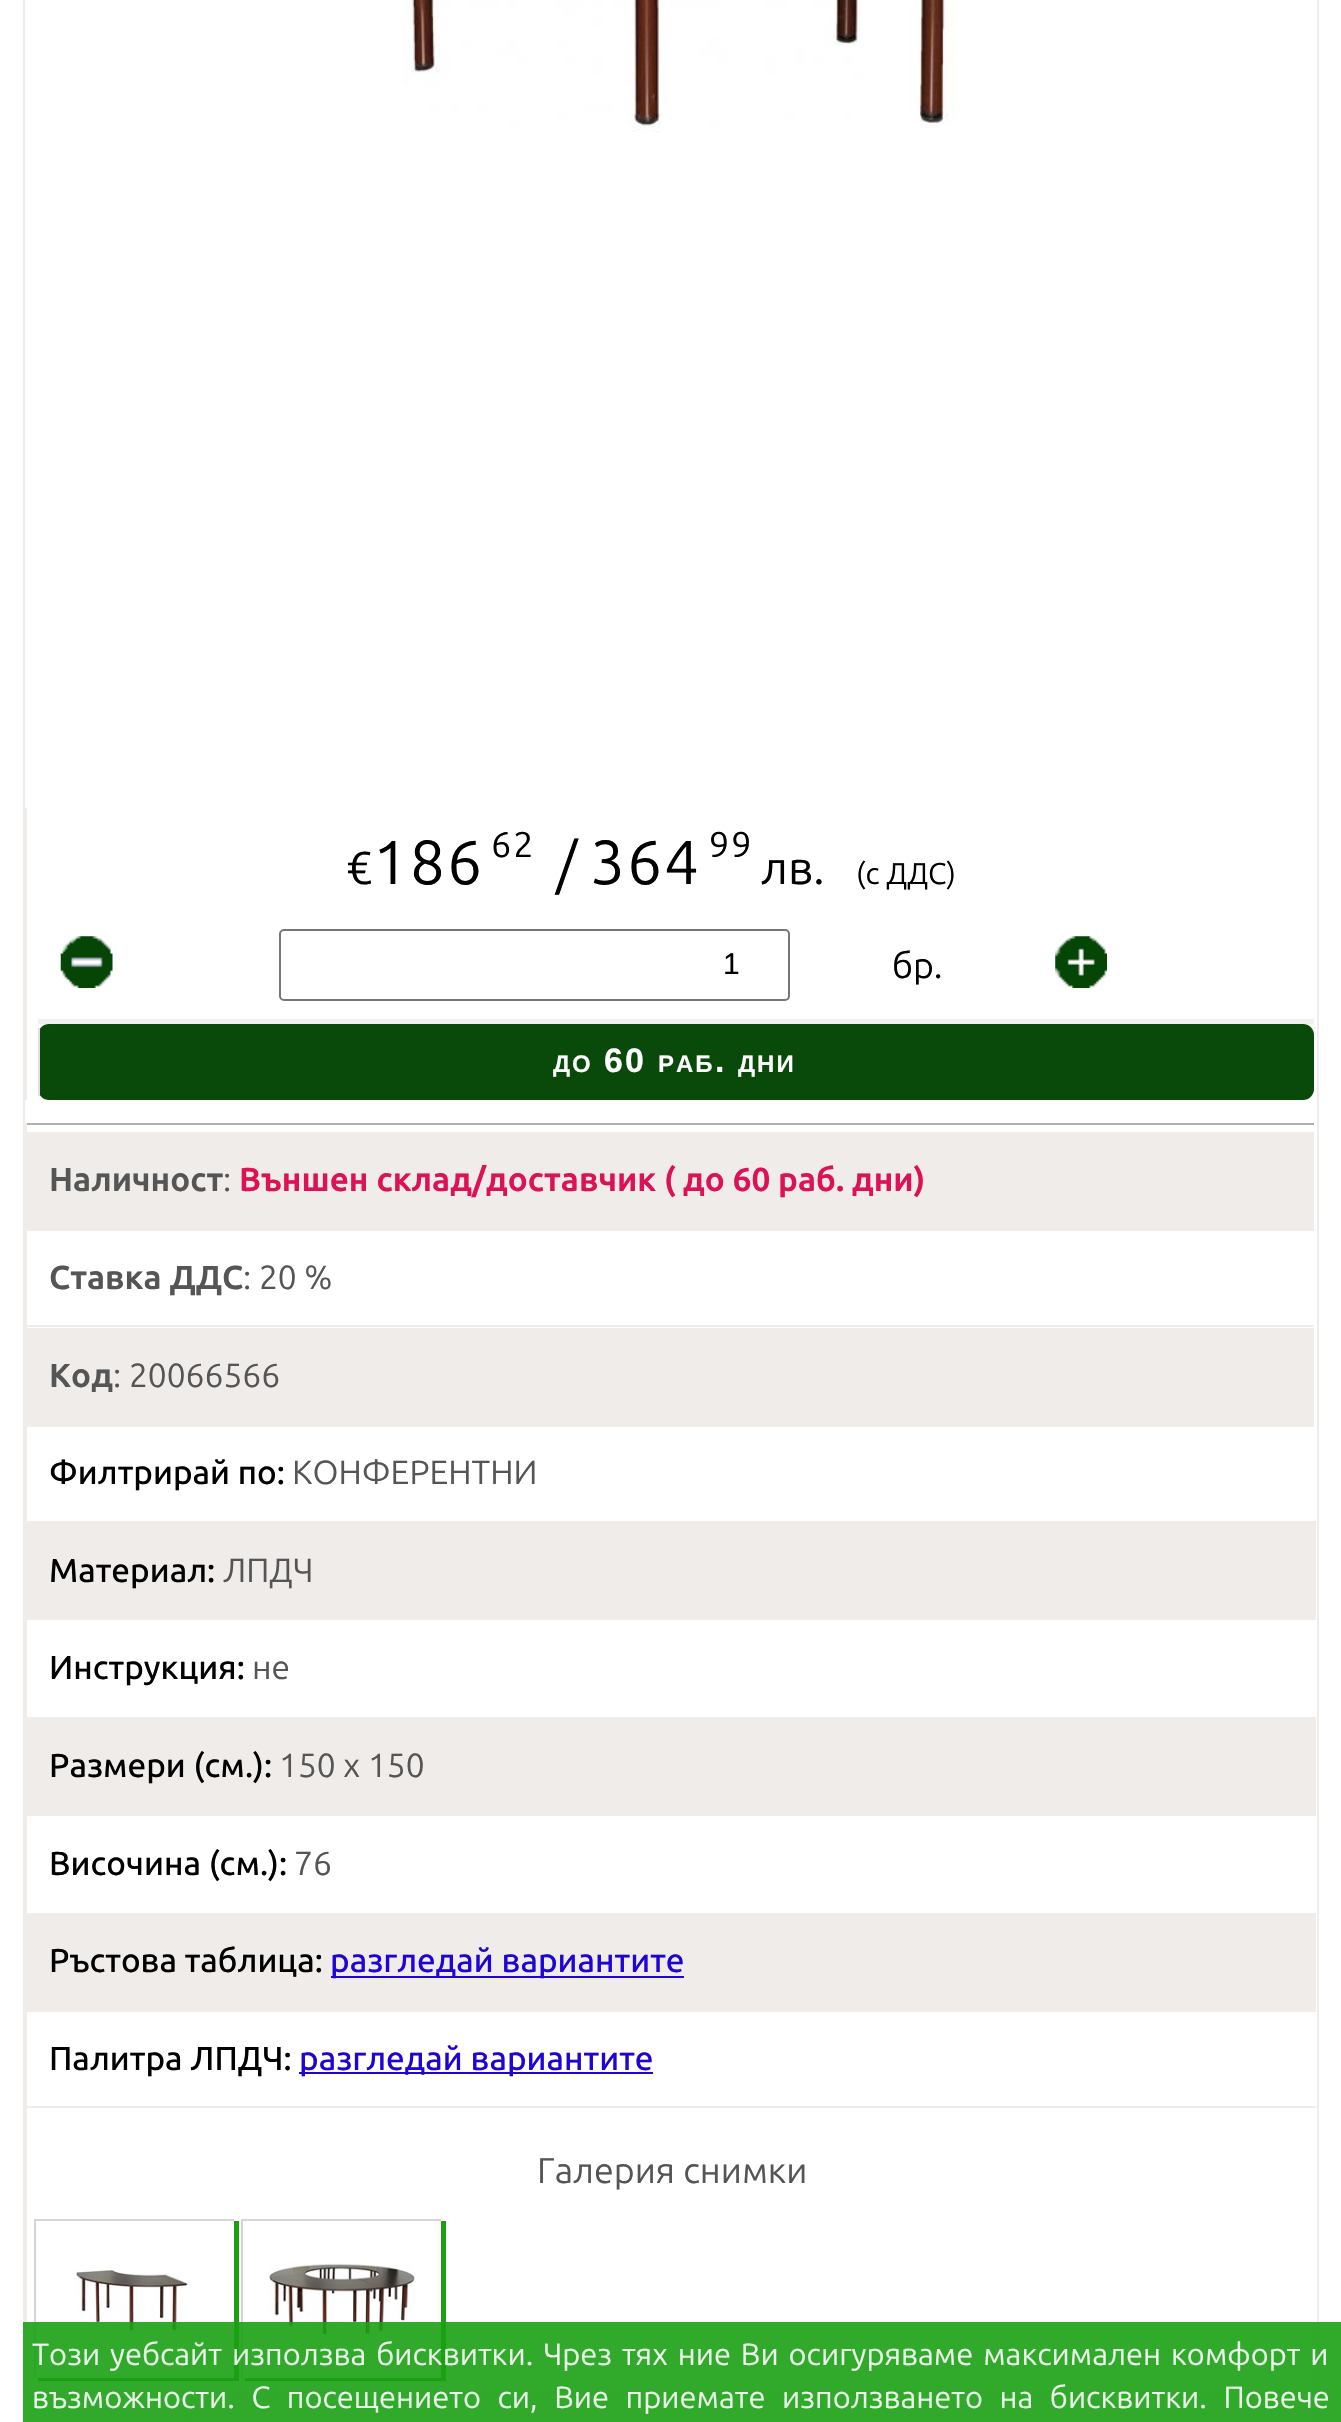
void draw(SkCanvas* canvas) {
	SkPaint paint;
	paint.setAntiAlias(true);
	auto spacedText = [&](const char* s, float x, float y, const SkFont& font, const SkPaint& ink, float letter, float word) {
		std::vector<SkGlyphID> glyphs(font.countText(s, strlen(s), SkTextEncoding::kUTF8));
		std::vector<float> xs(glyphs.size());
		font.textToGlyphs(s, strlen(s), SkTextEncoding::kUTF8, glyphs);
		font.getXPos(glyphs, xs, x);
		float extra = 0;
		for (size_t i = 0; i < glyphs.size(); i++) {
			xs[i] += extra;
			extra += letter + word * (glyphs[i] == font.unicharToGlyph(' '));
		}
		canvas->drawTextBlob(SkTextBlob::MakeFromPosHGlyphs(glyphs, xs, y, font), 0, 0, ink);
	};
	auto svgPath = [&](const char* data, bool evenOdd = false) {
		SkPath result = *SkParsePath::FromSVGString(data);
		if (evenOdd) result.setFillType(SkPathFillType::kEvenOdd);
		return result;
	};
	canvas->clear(0xffffffff);
	paint.setStroke(true);
	paint.setStrokeWidth(2);
	paint.setColor(0xffefecea);
	canvas->drawRect(SkRect::MakeXYWH(24, -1, 1294, 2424), paint);
	canvas->drawImageRect(SkImages::DeferredFromEncodedData(SkData::MakeFromFileName("img1.png")), SkRect::MakeXYWH(403, 0, 555, 133), SkSamplingOptions());
	paint.setStroke(false);
	canvas->drawRect(SkRect::MakeXYWH(25, 808, 2, 292), paint);
	SkFont f1(fontMgr->matchFamilyStyle("Ubuntu", SkFontStyle::Normal()), 46);
	f1.setSubpixel(true);
	paint.setColor(0xff000000);
	canvas->drawString("€", 346, 884, f1, paint);
	SkFont f2(fontMgr->matchFamilyStyle("Ubuntu", SkFontStyle::Normal()), 62);
	f2.setSubpixel(true);
	spacedText("186", 373, 884, f2, paint, 2, 0);
	SkFont f3(fontMgr->matchFamilyStyle("Ubuntu", SkFontStyle::Normal()), 35.75);
	f3.setSubpixel(true);
	spacedText("62", 491, 857, f3, paint, 2, 0);
	SkFont f4(fontMgr->matchFamilyStyle("Ubuntu", SkFontStyle::Normal()), 58);
	f4.setSubpixel(true);
	canvas->drawString("/", 556, 884, f4, paint);
	spacedText("364", 590, 884, f2, paint, 2, 0);
	spacedText("99", 709, 857, f3, paint, 2, 0);
	canvas->drawString("лв.", 761, 884, f1, paint);
	SkFont f5(fontMgr->matchFamilyStyle("Ubuntu", SkFontStyle::Normal()), 30);
	f5.setSubpixel(true);
	canvas->drawString("(с ДДС)", 856, 884, f5, paint);
	paint.setColor(0xfff0f0f0);
	canvas->drawRect(SkRect::MakeXYWH(38, 1019, 1276, 5), paint);
	canvas->drawImageRect(SkImages::DeferredFromEncodedData(SkData::MakeFromFileName("img2.png")), SkRect::MakeXYWH(60, 936, 53, 52), SkSamplingOptions());
	paint.setStroke(true);
	paint.setColor(0xff767676);
	canvas->drawRoundRect(SkRect::MakeXYWH(280, 930, 509, 70), 4, 4, paint);
	SkFont f6(fontMgr->matchFamilyStyle("Liberation Sans", SkFontStyle::Normal()), 30);
	f6.setSubpixel(true);
	paint.setStroke(false);
	paint.setColor(0xff000000);
	canvas->drawString("1", 723, 974, f6, paint);
	canvas->drawString("бр.", 892, 978, f3, paint);
	canvas->drawImageRect(SkImages::DeferredFromEncodedData(SkData::MakeFromFileName("img3.png")), SkRect::MakeXYWH(1055, 936, 52, 52), SkSamplingOptions());
	paint.setColor(0xff094909);
	canvas->drawRoundRect(SkRect::MakeXYWH(38, 1024, 1276, 76), 11, 11, paint);
	paint.setColor(0xffe0e0e0);
	canvas->drawRect(SkRect::MakeXYWH(38, 1028, 2, 68), paint);
	SkFont f7(fontMgr->matchFamilyStyle("Liberation Sans", SkFontStyle::Bold()), 24);
	f7.setSubpixel(true);
	paint.setColor(0xffffffff);
	spacedText("ДО", 553, 1072, f7, paint, 2, 0);
	SkFont f8(fontMgr->matchFamilyStyle("Liberation Sans", SkFontStyle::Bold()), 34);
	f8.setSubpixel(true);
	spacedText("60", 604, 1072, f8, paint, 2, 0);
	spacedText("РАБ", 658, 1072, f7, paint, 2, 0);
	spacedText(".", 715, 1072, f8, paint, 2, 0);
	spacedText("ДНИ", 738, 1072, f7, paint, 2, 0);
	paint.setColor(0xffb1b1b1);
	canvas->drawRect(SkRect::MakeXYWH(25, 1123, 1289, 2), paint);
	paint.setColor(0xffefecea);
	canvas->drawRect(SkRect::MakeXYWH(25, 1132, 1289, 99), paint);
	canvas->drawRect(SkRect::MakeXYWH(25, 1123, 2, 11), paint);
	SkFont f9(fontMgr->matchFamilyStyle("Ubuntu", SkFontStyle::Bold()), 33.25);
	f9.setSubpixel(true);
	paint.setColor(0xff555555);
	canvas->drawString("Наличност", 49, 1191, f9, paint);
	SkFont f10(fontMgr->matchFamilyStyle("Ubuntu", SkFontStyle::Normal()), 33.5);
	f10.setSubpixel(true);
	canvas->drawString(":", 223, 1191, f10, paint);
	paint.setColor(0xffdd1155);
	canvas->drawString("Външен склад/доставчик (", 239, 1191, f9, paint);
	canvas->drawString("до 60 раб. дни)", 683, 1191, f9, paint);
	paint.setColor(0xffefecea);
	canvas->drawRect(SkRect::MakeXYWH(25, 1325, 1289, 2), paint);
	canvas->drawRect(SkRect::MakeXYWH(25, 1231, 2, 97), paint);
	paint.setColor(0xff555555);
	canvas->drawString("Ставка ДДС", 49, 1289, f9, paint);
	canvas->drawString(": 20 %", 243, 1289, f10, paint);
	paint.setColor(0xffefecea);
	canvas->drawRect(SkRect::MakeXYWH(25, 1328, 1289, 99), paint);
	paint.setColor(0xff555555);
	canvas->drawString("Код", 49, 1387, f9, paint);
	canvas->drawString(": 20066566", 113, 1387, f10, paint);
	paint.setColor(0xffefecea);
	canvas->drawRect(SkRect::MakeXYWH(25, 1521, 1291, 99), paint);
	canvas->drawRect(SkRect::MakeXYWH(25, 1427, 2, 96), paint);
	SkFont f11(fontMgr->matchFamilyStyle("Ubuntu", SkFontStyle(500, SkFontStyle::kNormal_Width, SkFontStyle::kUpright_Slant)), 33.25);
	f11.setSubpixel(true);
	paint.setColor(0xff000000);
	canvas->drawString("Филтрирай по:", 49, 1484, f11, paint);
	paint.setColor(0xff555555);
	canvas->drawString("КОНФЕРЕНТНИ", 292, 1484, f10, paint);
	paint.setColor(0xff000000);
	canvas->drawString("Материал:", 49, 1582, f11, paint);
	paint.setColor(0xff555555);
	canvas->drawString("ЛПДЧ", 223, 1582, f10, paint);
	paint.setColor(0xffefecea);
	canvas->drawRect(SkRect::MakeXYWH(25, 1717, 1291, 99), paint);
	canvas->drawRect(SkRect::MakeXYWH(25, 1620, 2, 99), paint);
	paint.setColor(0xff000000);
	canvas->drawString("Инструкция:", 49, 1679, f11, paint);
	paint.setColor(0xff555555);
	canvas->drawString("не", 252, 1679, f10, paint);
	paint.setColor(0xff000000);
	canvas->drawString("Размери (см.):", 49, 1777, f11, paint);
	paint.setColor(0xff555555);
	canvas->drawString("150 х 150", 279, 1777, f10, paint);
	paint.setColor(0xffefecea);
	canvas->drawRect(SkRect::MakeXYWH(25, 1913, 1291, 99), paint);
	canvas->drawRect(SkRect::MakeXYWH(25, 1816, 2, 99), paint);
	paint.setColor(0xff000000);
	canvas->drawString("Височина (см.):", 49, 1875, f11, paint);
	paint.setColor(0xff555555);
	canvas->drawString("76", 294, 1875, f10, paint);
	paint.setColor(0xff000000);
	canvas->drawString("Ръстова таблица:", 49, 1972, f11, paint);
	paint.setColor(0xff1e04d5);
	canvas->drawRect(SkRect::MakeXYWH(331, 1976, 353, 2), paint);
	canvas->drawString("разгледай вариантите", 330, 1972, f11, paint);
	paint.setColor(0xffefecea);
	canvas->drawRect(SkRect::MakeXYWH(25, 2106, 1291, 2), paint);
	canvas->drawRect(SkRect::MakeXYWH(25, 2012, 2, 200), paint);
	paint.setColor(0xff000000);
	canvas->drawString("Палитра ЛПДЧ:", 49, 2070, f11, paint);
	paint.setColor(0xff1e04d5);
	canvas->drawRect(SkRect::MakeXYWH(299, 2072, 354, 2), paint);
	canvas->drawString("разгледай вариантите", 299, 2070, f11, paint);
	paint.setColor(0xff555555);
	canvas->drawString("Галерия снимки", 537, 2183, f3, paint);
	paint.setColor(0xffefecea);
	canvas->drawRect(SkRect::MakeXYWH(25, 2392, 1291, 2), paint);
	canvas->drawRect(SkRect::MakeXYWH(25, 2212, 2, 182), paint);
	paint.setColor(0xff1ba014);
	canvas->drawPath(svgPath("M38 2378V2381H239V2221H234V2378Z"), paint);
	paint.setColor(0xffd5d5d5);
	canvas->drawRect(SkRect::MakeXYWH(34, 2219, 200, 2), paint);
	canvas->drawRect(SkRect::MakeXYWH(34, 2219, 2, 159), paint);
	canvas->drawImageRect(SkImages::DeferredFromEncodedData(SkData::MakeFromFileName("img4.png")), SkRect::MakeXYWH(74, 2269, 116, 63), SkSamplingOptions());
	paint.setColor(0xff1ba014);
	canvas->drawPath(svgPath("M245 2378V2381H446V2221H441V2378Z"), paint);
	paint.setColor(0xffd5d5d5);
	canvas->drawRect(SkRect::MakeXYWH(241, 2219, 200, 2), paint);
	canvas->drawRect(SkRect::MakeXYWH(241, 2219, 2, 159), paint);
	canvas->drawImageRect(SkImages::DeferredFromEncodedData(SkData::MakeFromFileName("img5.png")), SkRect::MakeXYWH(268, 2263, 148, 76), SkSamplingOptions());
	paint.setColor(0xfff0f0f0);
	canvas->drawRect(SkRect::MakeXYWH(185, 2412, 2, 10), paint);
	paint.setColor(0xe61ba014);
	canvas->drawRect(SkRect::MakeXYWH(23, 2322, 1318, 100), paint);
	SkFont f12(fontMgr->matchFamilyStyle("Ubuntu", SkFontStyle::Normal()), 30.8);
	f12.setSubpixel(true);
	paint.setColor(0xffeaf6ea);
	spacedText("Този уебсайт използва бисквитки. Чрез тях ние Ви осигуряваме максимален комфорт и", 32, 2365, f12, paint, 0, 2.9);
	spacedText("възможности. С посещението си, Вие приемате използването на бисквитки. Повече", 32, 2408, f12, paint, 0, 9.5);
}
